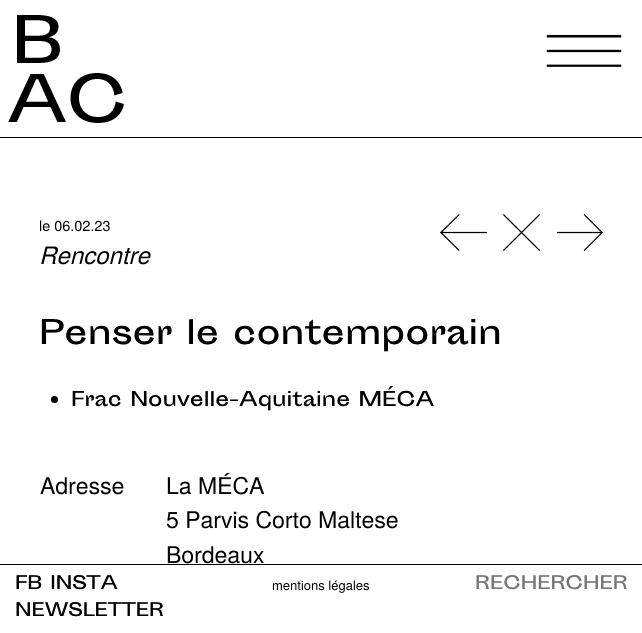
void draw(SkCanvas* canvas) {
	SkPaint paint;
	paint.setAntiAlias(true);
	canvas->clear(0xffffffff);
	paint.setColor(0xff000000);
	canvas->drawRect(SkRect::MakeXYWH(0, 137, 642, 1), paint);
	canvas->drawImageRect(SkImages::DeferredFromEncodedData(SkData::MakeFromFileName("img1.png")), SkRect::MakeXYWH(8, 15, 116, 108), SkSamplingOptions());
	canvas->drawImageRect(SkImages::DeferredFromEncodedData(SkData::MakeFromFileName("img2.png")), SkRect::MakeXYWH(546, 34, 76, 33), SkSamplingOptions());
	canvas->drawImageRect(SkImages::DeferredFromEncodedData(SkData::MakeFromFileName("img3.png")), SkRect::MakeXYWH(40, 220, 70, 12), SkSamplingOptions());
	canvas->drawImageRect(SkImages::DeferredFromEncodedData(SkData::MakeFromFileName("img4.png")), SkRect::MakeXYWH(41, 246, 110, 19), SkSamplingOptions());
	canvas->drawImageRect(SkImages::DeferredFromEncodedData(SkData::MakeFromFileName("img5.png")), SkRect::MakeXYWH(440, 214, 47, 37), SkSamplingOptions());
	canvas->drawImageRect(SkImages::DeferredFromEncodedData(SkData::MakeFromFileName("img6.png")), SkRect::MakeXYWH(503, 214, 37, 37), SkSamplingOptions());
	canvas->drawImageRect(SkImages::DeferredFromEncodedData(SkData::MakeFromFileName("img7.png")), SkRect::MakeXYWH(557, 214, 46, 37), SkSamplingOptions());
	SkFont f1(fontMgr->matchFamilyStyle("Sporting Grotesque", SkFontStyle(500, SkFontStyle::kNormal_Width, SkFontStyle::kUpright_Slant)), 32.1);
	f1.setSubpixel(true);
	canvas->drawString("Penser le contemporain", 39, 344, f1, paint);
	canvas->drawCircle(54.5, 399.5, 3.5, paint);
	SkFont f2(fontMgr->matchFamilyStyle("Sporting Grotesque", SkFontStyle(500, SkFontStyle::kNormal_Width, SkFontStyle::kUpright_Slant)), 19.25);
	f2.setSubpixel(true);
	canvas->drawString("Frac Nouvelle-Aquitaine MÉCA", 71, 406, f2, paint);
	canvas->drawImageRect(SkImages::DeferredFromEncodedData(SkData::MakeFromFileName("img8.png")), SkRect::MakeXYWH(40, 477, 84, 18), SkSamplingOptions());
	canvas->drawImageRect(SkImages::DeferredFromEncodedData(SkData::MakeFromFileName("img9.png")), SkRect::MakeXYWH(167, 472, 97, 23), SkSamplingOptions());
	canvas->drawImageRect(SkImages::DeferredFromEncodedData(SkData::MakeFromFileName("img10.png")), SkRect::MakeXYWH(166, 510, 232, 19), SkSamplingOptions());
	canvas->drawImageRect(SkImages::DeferredFromEncodedData(SkData::MakeFromFileName("img11.png")), SkRect::MakeXYWH(167, 546, 97, 18), SkSamplingOptions());
	canvas->drawRect(SkRect::MakeXYWH(0, 564, 642, 1), paint);
	SkFont f3(fontMgr->matchFamilyStyle("Sporting Grotesque", SkFontStyle(500, SkFontStyle::kNormal_Width, SkFontStyle::kUpright_Slant)), 17.75);
	f3.setSubpixel(true);
	canvas->drawString("FB INSTA", 15, 589, f3, paint);
	canvas->drawString("NEWSLETTER", 15, 616, f3, paint);
	canvas->drawImageRect(SkImages::DeferredFromEncodedData(SkData::MakeFromFileName("img12.png")), SkRect::MakeXYWH(272, 580, 97, 13), SkSamplingOptions());
	paint.setColor(0xff757575);
	canvas->drawString("RECHERCHER", 475, 589, f3, paint);
}
